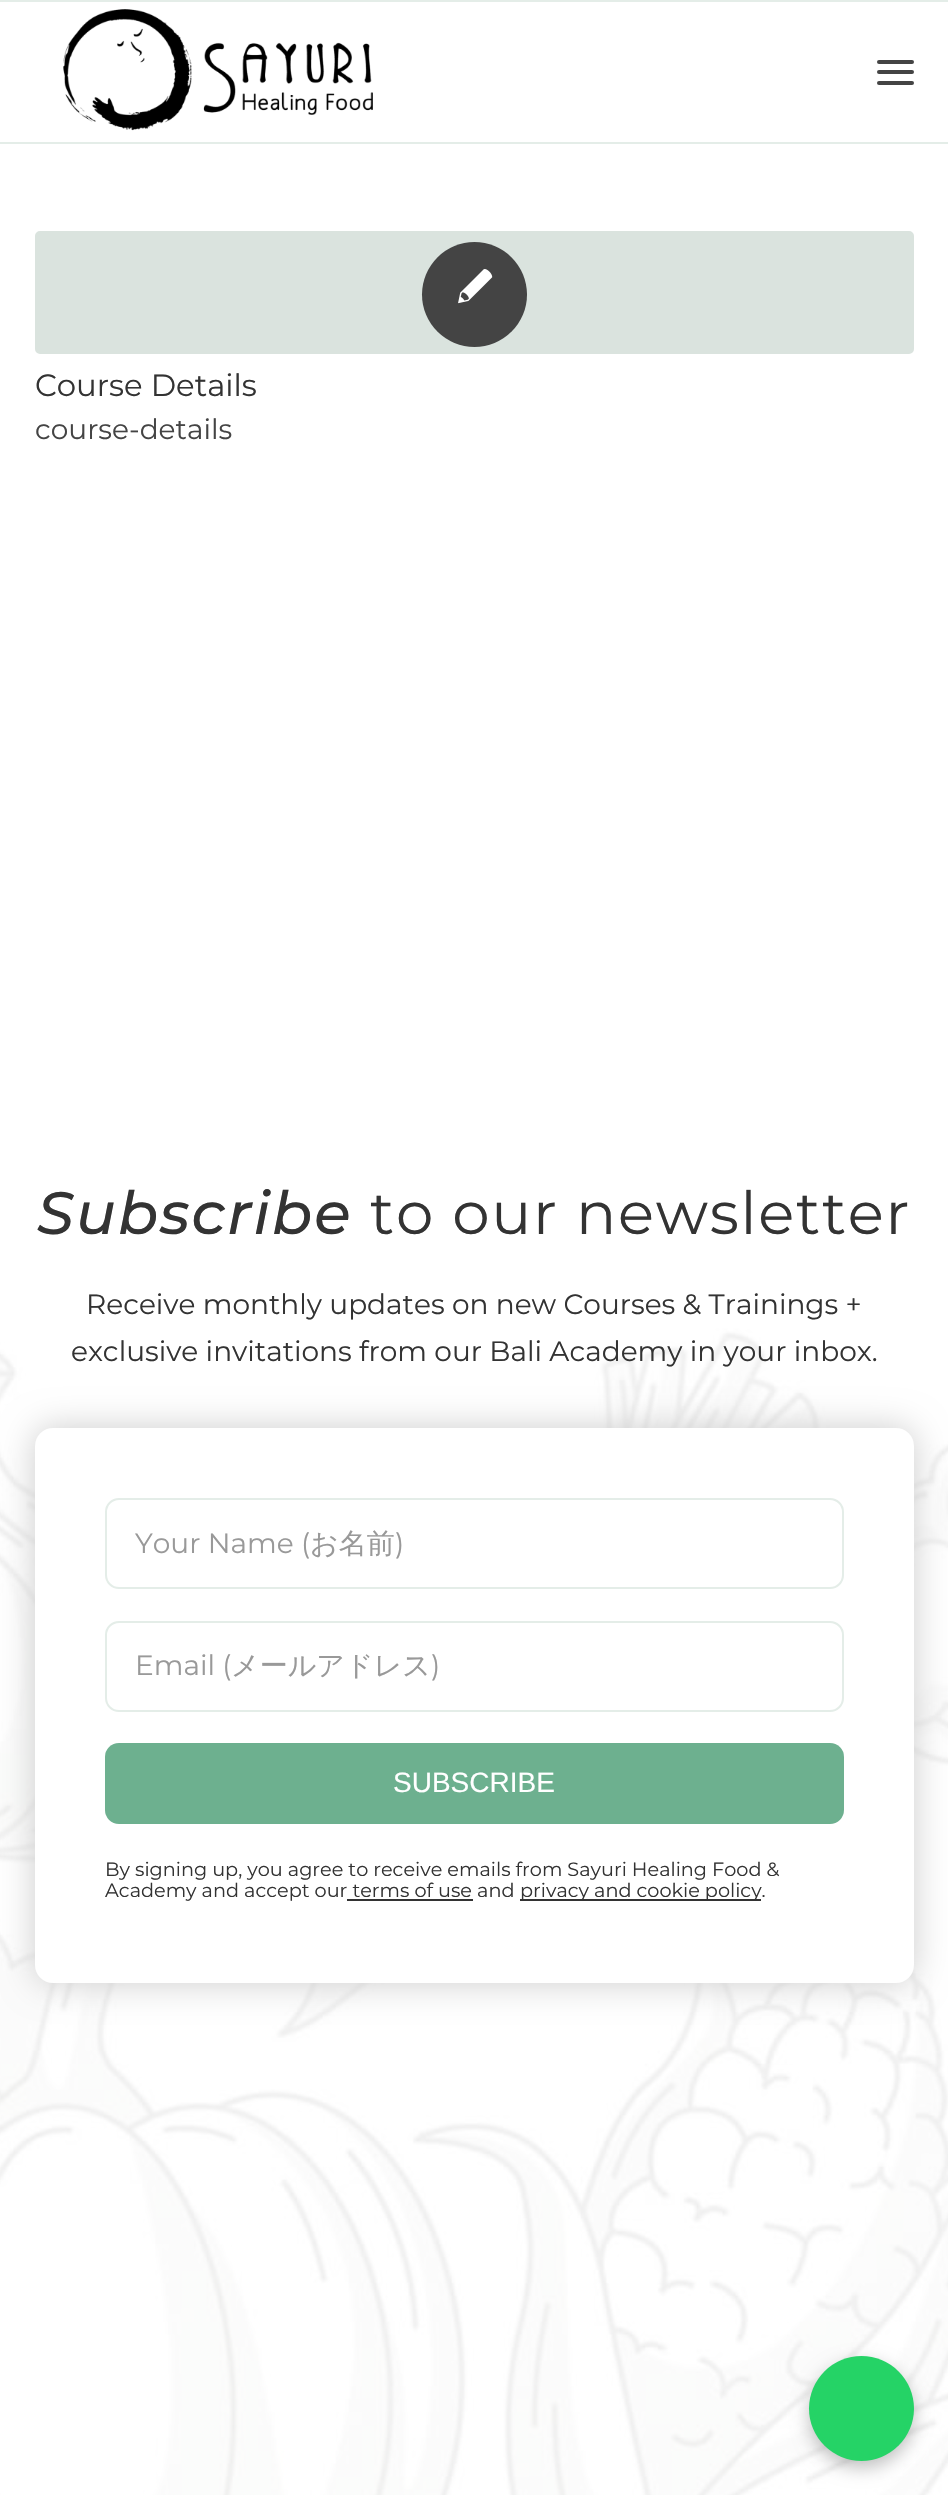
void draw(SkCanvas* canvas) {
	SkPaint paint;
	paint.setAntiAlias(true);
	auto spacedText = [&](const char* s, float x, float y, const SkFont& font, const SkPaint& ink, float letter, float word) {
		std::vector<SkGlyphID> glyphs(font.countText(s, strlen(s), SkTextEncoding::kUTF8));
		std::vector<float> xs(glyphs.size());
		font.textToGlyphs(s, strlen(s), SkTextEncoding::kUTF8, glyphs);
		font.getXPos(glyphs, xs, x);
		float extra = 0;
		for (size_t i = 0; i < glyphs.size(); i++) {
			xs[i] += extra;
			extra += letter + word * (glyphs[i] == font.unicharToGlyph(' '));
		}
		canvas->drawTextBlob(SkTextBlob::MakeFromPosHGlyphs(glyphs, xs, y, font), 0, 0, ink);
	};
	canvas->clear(0xffffffff);
	paint.setColor(0xffe4ede8);
	canvas->drawRect(SkRect::MakeXYWH(0, 0, 948, 2), paint);
	canvas->drawRect(SkRect::MakeXYWH(0, 142, 948, 2), paint);
	canvas->drawImageRect(SkImages::DeferredFromEncodedData(SkData::MakeFromFileName("img1.png")), SkRect::MakeXYWH(63, 9, 310, 122), SkSamplingOptions());
	paint.setColor(0xff444444);
	canvas->drawRoundRect(SkRect::MakeXYWH(877, 70, 37, 4), 2, 2, paint);
	canvas->drawRoundRect(SkRect::MakeXYWH(877, 60, 37, 4), 2, 2, paint);
	canvas->drawRoundRect(SkRect::MakeXYWH(877, 81, 37, 4), 2, 2, paint);
	paint.setColor(0xffdae3de);
	canvas->drawRoundRect(SkRect::MakeXYWH(36, 232, 877, 121), 4, 4, paint);
	paint.setStroke(true);
	paint.setStrokeWidth(2);
	canvas->drawRoundRect(SkRect::MakeXYWH(36, 232, 877, 121), 4, 4, paint);
	paint.setStroke(false);
	paint.setColor(0xff444444);
	canvas->drawCircle(474.5, 294.5, 52.5, paint);
	canvas->drawImageRect(SkImages::DeferredFromEncodedData(SkData::MakeFromFileName("img2.png")), SkRect::MakeXYWH(458, 269, 35, 35), SkSamplingOptions());
	SkFont f1(fontMgr->matchFamilyStyle("Montserrat", SkFontStyle::Normal()), 30.75);
	f1.setSubpixel(true);
	paint.setColor(0xff333333);
	canvas->drawString("Course Details", 35, 396, f1, paint);
	SkFont f2(fontMgr->matchFamilyStyle("Montserrat", SkFontStyle::Normal()), 28);
	f2.setSubpixel(true);
	paint.setColor(0xff444444);
	canvas->drawString("course-details", 35, 439, f2, paint);
	canvas->drawImageRect(SkImages::DeferredFromEncodedData(SkData::MakeFromFileName("img3.png")), SkRect::MakeXYWH(0, 646, 948, 1849), SkSamplingOptions());
	SkFont f3(fontMgr->matchFamilyStyle("Montserrat", SkFontStyle(500, SkFontStyle::kNormal_Width, SkFontStyle::kItalic_Slant)), 59.5);
	f3.setSubpixel(true);
	paint.setColor(0xff333333);
	spacedText("Subscribe", 37, 1234, f3, paint, 1.75, 0);
	SkFont f4(fontMgr->matchFamilyStyle("Montserrat", SkFontStyle::Normal()), 59.5);
	f4.setSubpixel(true);
	spacedText("to our newsletter", 370, 1234, f4, paint, 1.75, 0);
	canvas->drawString("Receive monthly updates on new Courses & Trainings +", 86, 1314, f2, paint);
	canvas->drawString("exclusive invitations from our Bali Academy in your inbox.", 71, 1361, f2, paint);
	paint.setColor(0xffcccccc);
	paint.setMaskFilter(SkMaskFilter::MakeBlur(kNormal_SkBlurStyle, 17.5));
	canvas->drawRoundRect(SkRect::MakeXYWH(35, 1428, 879, 555), 18, 18, paint);
	paint.setMaskFilter(nullptr);
	paint.setColor(0xffffffff);
	canvas->drawRoundRect(SkRect::MakeXYWH(35, 1428, 879, 555), 18, 18, paint);
	paint.setStroke(true);
	paint.setColor(0xffe4ede8);
	canvas->drawRoundRect(SkRect::MakeXYWH(106, 1499, 737, 89), 13, 13, paint);
	paint.setStroke(false);
	paint.setColor(0xff999999);
	canvas->drawString("Your Name (", 135, 1553, f2, paint);
	SkFont f5(fontMgr->matchFamilyStyle("WenQuanYi Zen Hei", SkFontStyle(500, SkFontStyle::kNormal_Width, SkFontStyle::kUpright_Slant)), 28);
	f5.setSubpixel(true);
	canvas->drawString("お名前", 310, 1553, f5, paint);
	canvas->drawString(")", 395, 1553, f2, paint);
	paint.setStroke(true);
	paint.setColor(0xffe4ede8);
	canvas->drawRoundRect(SkRect::MakeXYWH(106, 1622, 737, 89), 13, 13, paint);
	paint.setStroke(false);
	paint.setColor(0xff999999);
	canvas->drawString("Email (", 135, 1675, f2, paint);
	canvas->drawString("メールアドレス", 231, 1675, f5, paint);
	canvas->drawString(")", 431, 1675, f2, paint);
	paint.setColor(0xff6db08f);
	canvas->drawRoundRect(SkRect::MakeXYWH(105, 1743, 739, 81), 14, 14, paint);
	SkFont f6(fontMgr->matchFamilyStyle("Liberation Sans", SkFontStyle::Normal()), 28);
	f6.setSubpixel(true);
	paint.setColor(0xffffffff);
	canvas->drawString("SUBSCRIBE", 393, 1792, f6, paint);
	SkFont f7(fontMgr->matchFamilyStyle("Montserrat", SkFontStyle::Normal()), 19.25);
	f7.setSubpixel(true);
	paint.setColor(0xff333333);
	canvas->drawString("By signing up, you agree to receive emails from Sayuri Healing Food &", 105, 1876, f7, paint);
	canvas->drawString("Academy and accept our terms of use and", 105, 1897, f7, paint);
	canvas->drawRect(SkRect::MakeXYWH(520, 1899, 241, 2), paint);
	canvas->drawString("privacy and cookie policy.", 520, 1897, f7, paint);
	canvas->drawRect(SkRect::MakeXYWH(347, 1899, 126, 2), paint);
	paint.setColor(0x40000000);
	paint.setMaskFilter(SkMaskFilter::MakeBlur(kNormal_SkBlurStyle, 9));
	canvas->drawRoundRect(SkRect::MakeXYWH(809, 2363, 105, 105), 52.5, 52.5, paint);
	paint.setMaskFilter(nullptr);
	paint.setColor(0xff25d366);
	canvas->drawCircle(861.5, 2408.5, 52.5, paint);
}
